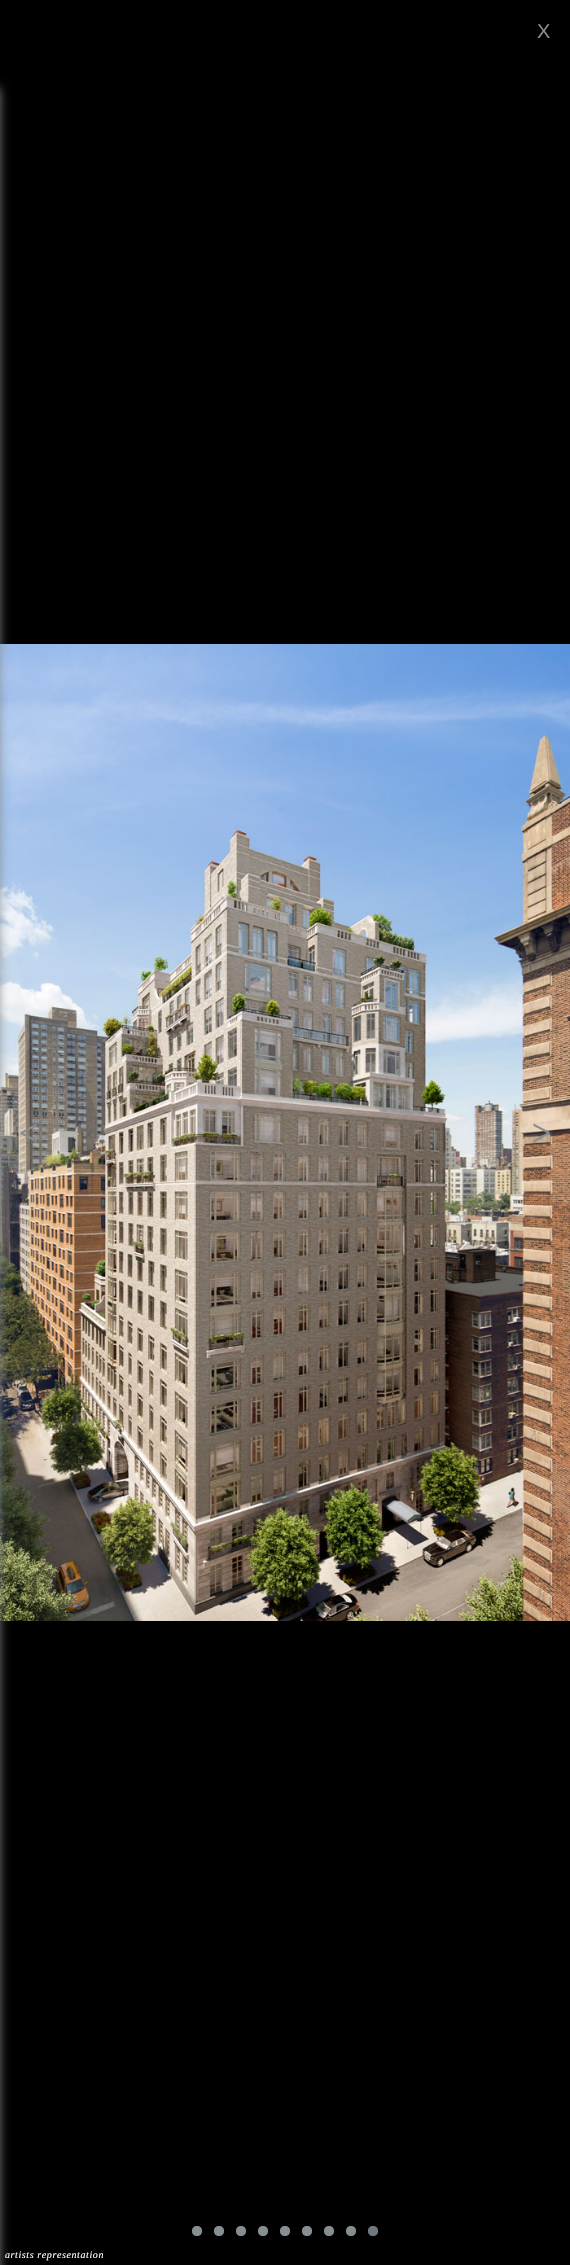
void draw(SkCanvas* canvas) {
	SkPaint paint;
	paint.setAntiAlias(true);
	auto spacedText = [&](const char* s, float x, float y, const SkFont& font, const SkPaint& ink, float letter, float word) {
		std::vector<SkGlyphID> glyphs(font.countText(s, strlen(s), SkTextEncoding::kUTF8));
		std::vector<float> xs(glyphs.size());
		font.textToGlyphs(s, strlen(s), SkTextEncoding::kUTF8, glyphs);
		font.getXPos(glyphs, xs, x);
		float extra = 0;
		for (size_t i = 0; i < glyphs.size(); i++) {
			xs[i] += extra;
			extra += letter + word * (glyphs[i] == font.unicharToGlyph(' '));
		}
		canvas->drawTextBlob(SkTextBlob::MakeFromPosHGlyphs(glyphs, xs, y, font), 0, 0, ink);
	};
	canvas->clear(0xff000000);
	SkFont f1(fontMgr->matchFamilyStyle("Liberation Sans", SkFontStyle::Normal()), 20);
	f1.setSubpixel(true);
	paint.setColor(0xff878e92);
	canvas->drawString("X", 537, 38, f1, paint);
	canvas->drawImageRect(SkImages::DeferredFromEncodedData(SkData::MakeFromFileName("img5.png")), SkRect::MakeXYWH(0, 644, 570, 977), SkSamplingOptions());
	canvas->drawImageRect(SkImages::DeferredFromEncodedData(SkData::MakeFromFileName("img1.png")), SkRect::MakeXYWH(20, 1123, 17, 20), SkSamplingOptions());
	canvas->drawImageRect(SkImages::DeferredFromEncodedData(SkData::MakeFromFileName("img2.png")), SkRect::MakeXYWH(533, 1123, 17, 20), SkSamplingOptions());
	canvas->drawImageRect(SkImages::DeferredFromEncodedData(SkData::MakeFromFileName("img3.png")), SkRect::MakeXYWH(192, 2226, 10, 10), SkSamplingOptions());
	canvas->drawImageRect(SkImages::DeferredFromEncodedData(SkData::MakeFromFileName("img3.png")), SkRect::MakeXYWH(214, 2226, 10, 10), SkSamplingOptions());
	canvas->drawImageRect(SkImages::DeferredFromEncodedData(SkData::MakeFromFileName("img3.png")), SkRect::MakeXYWH(236, 2226, 10, 10), SkSamplingOptions());
	canvas->drawImageRect(SkImages::DeferredFromEncodedData(SkData::MakeFromFileName("img3.png")), SkRect::MakeXYWH(258, 2226, 10, 10), SkSamplingOptions());
	canvas->drawImageRect(SkImages::DeferredFromEncodedData(SkData::MakeFromFileName("img3.png")), SkRect::MakeXYWH(280, 2226, 10, 10), SkSamplingOptions());
	canvas->drawImageRect(SkImages::DeferredFromEncodedData(SkData::MakeFromFileName("img3.png")), SkRect::MakeXYWH(302, 2226, 10, 10), SkSamplingOptions());
	canvas->drawImageRect(SkImages::DeferredFromEncodedData(SkData::MakeFromFileName("img3.png")), SkRect::MakeXYWH(324, 2226, 10, 10), SkSamplingOptions());
	canvas->drawImageRect(SkImages::DeferredFromEncodedData(SkData::MakeFromFileName("img3.png")), SkRect::MakeXYWH(346, 2226, 10, 10), SkSamplingOptions());
	canvas->drawImageRect(SkImages::DeferredFromEncodedData(SkData::MakeFromFileName("img4.png")), SkRect::MakeXYWH(368, 2226, 10, 10), SkSamplingOptions());
	SkFont f2(fontMgr->matchFamilyStyle("Liberation Serif", SkFontStyle::Italic()), 10);
	f2.setSubpixel(true);
	paint.setColor(0xffffffff);
	spacedText("artists representation", 5, 2258, f2, paint, 0.6, 0);
	paint.setColor(0xff878e92);
	paint.setMaskFilter(SkMaskFilter::MakeBlur(kNormal_SkBlurStyle, 5.5));
	canvas->drawRect(SkRect::MakeXYWH(-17, 88, 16, 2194), paint);
	paint.setMaskFilter(nullptr);
}
